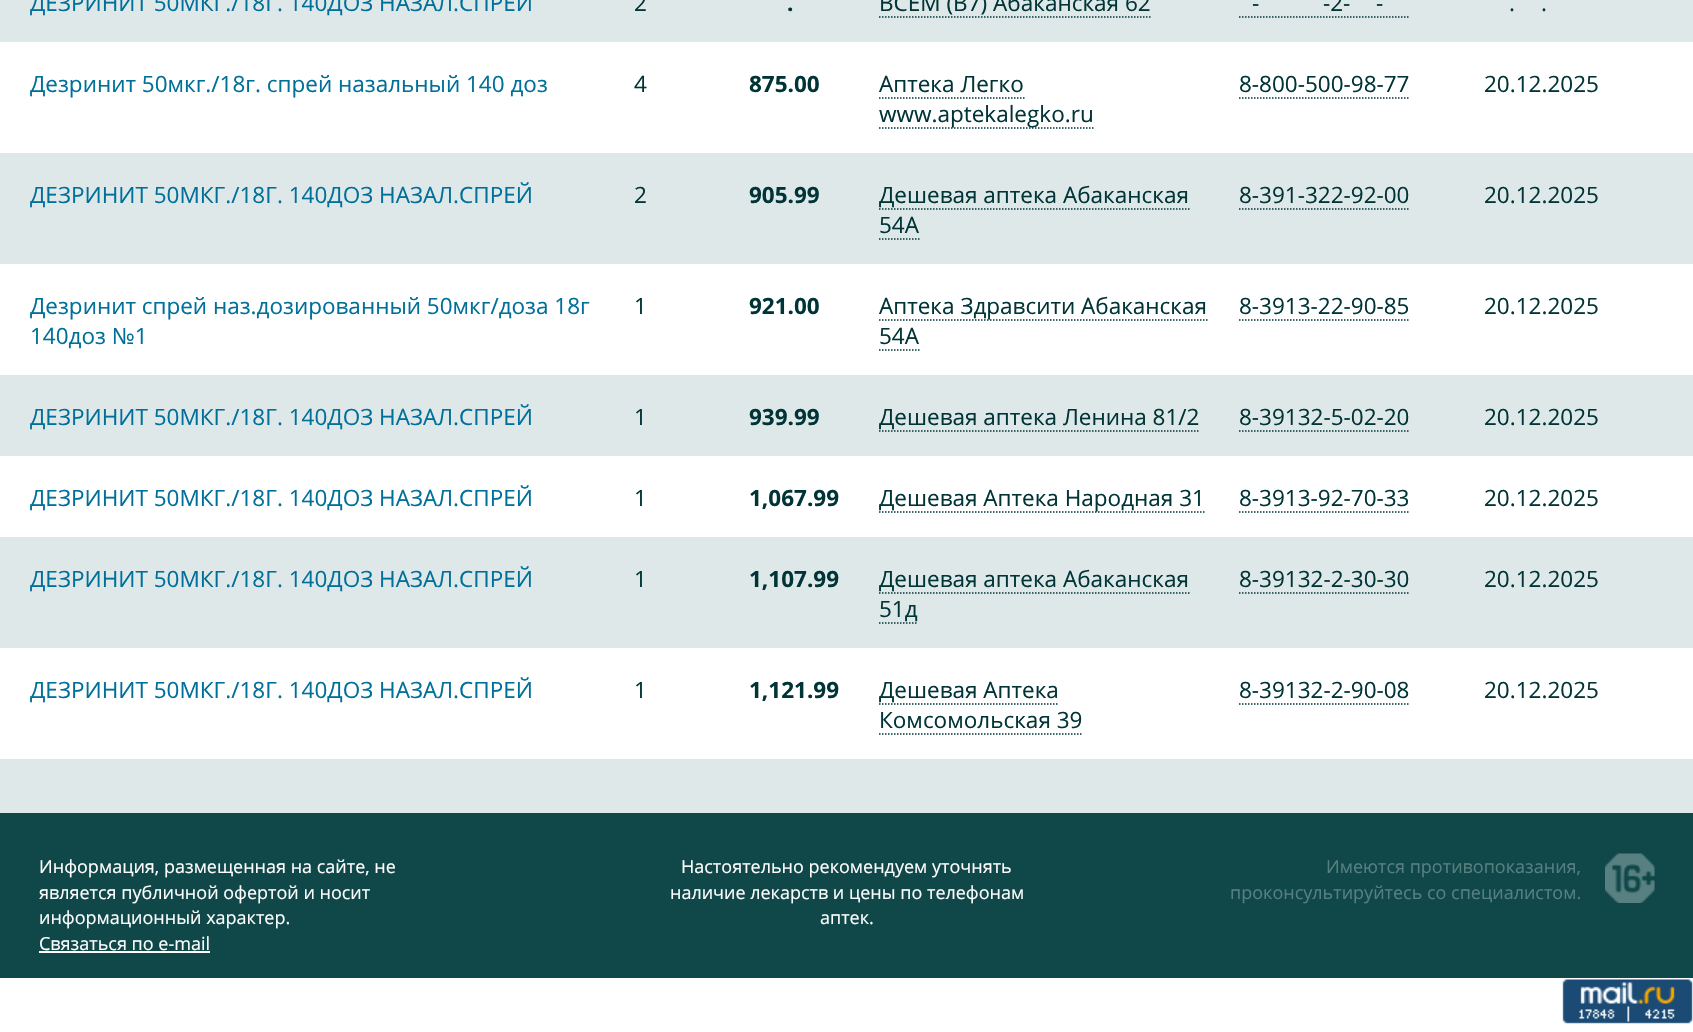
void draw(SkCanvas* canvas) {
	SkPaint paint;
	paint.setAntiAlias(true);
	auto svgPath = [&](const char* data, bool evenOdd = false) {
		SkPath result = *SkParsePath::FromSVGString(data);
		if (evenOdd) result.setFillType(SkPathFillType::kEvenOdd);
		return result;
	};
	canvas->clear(0xffffffff);
	paint.setColor(0xffdee8e9);
	canvas->drawRect(SkRect::MakeXYWH(0, 0, 1693, 813), paint);
	SkFont f1(fontMgr->matchFamilyStyle("Open Sans", SkFontStyle::Normal()), 22.5);
	f1.setSubpixel(true);
	paint.setColor(0xff00709a);
	canvas->drawString("ДЕЗРИНИТ 50МКГ./18Г. 140ДОЗ НАЗАЛ.СПРЕЙ", 30, 11, f1, paint);
	paint.setColor(0xff003436);
	canvas->drawString("2", 634, 11, f1, paint);
	SkFont f2(fontMgr->matchFamilyStyle("Open Sans", SkFontStyle::Bold()), 22.5);
	f2.setSubpixel(true);
	canvas->drawString(".", 787, 11, f2, paint);
	canvas->drawString("ВСЕМ (В7) Абаканская 62", 879, 11, f1, paint);
	paint.setStroke(true);
	paint.setStrokeWidth(1.5);
	paint.setPathEffect(SkDashPathEffect::Make({{1.5f, 1.5f}}, 0));
	canvas->drawPath(svgPath("M879 17H1150.5"), paint);
	paint.setPathEffect(nullptr);
	paint.setStroke(false);
	canvas->drawString("-", 1252, 11, f1, paint);
	canvas->drawString("-2-", 1323, 11, f1, paint);
	paint.setStroke(true);
	paint.setPathEffect(SkDashPathEffect::Make({{1.5f, 1.5f}}, 0));
	canvas->drawPath(svgPath("M1239 17H1408.5"), paint);
	paint.setPathEffect(nullptr);
	paint.setStroke(false);
	canvas->drawString("-", 1376, 11, f1, paint);
	canvas->drawString(".", 1509, 11, f1, paint);
	canvas->drawString(".", 1541, 11, f1, paint);
	paint.setColor(0xffffffff);
	canvas->drawRect(SkRect::MakeXYWH(0, 42, 1693, 111), paint);
	paint.setColor(0xff00709a);
	canvas->drawString("Дезринит 50мкг./18г. спрей назальный 140 доз", 30, 92, f1, paint);
	paint.setColor(0xff003436);
	canvas->drawString("4", 634, 92, f1, paint);
	canvas->drawString("875.00", 749, 92, f2, paint);
	canvas->drawString("Аптека Легко", 879, 92, f1, paint);
	paint.setStroke(true);
	paint.setPathEffect(SkDashPathEffect::Make({{1.5f, 1.5f}}, 0));
	canvas->drawPath(svgPath("M879 98H1024.5"), paint);
	paint.setPathEffect(nullptr);
	paint.setPathEffect(SkDashPathEffect::Make({{1.5f, 1.5f}}, 0));
	canvas->drawPath(svgPath("M879 128H1093.5"), paint);
	paint.setPathEffect(nullptr);
	paint.setStroke(false);
	canvas->drawString("www.aptekalegko.ru", 879, 122, f1, paint);
	canvas->drawString("8-800-500-98-77", 1239, 92, f1, paint);
	paint.setStroke(true);
	paint.setPathEffect(SkDashPathEffect::Make({{1.5f, 1.5f}}, 0));
	canvas->drawPath(svgPath("M1239 98H1408.5"), paint);
	paint.setPathEffect(nullptr);
	paint.setStroke(false);
	canvas->drawString("20.12.2025", 1484, 92, f1, paint);
	paint.setColor(0xff00709a);
	canvas->drawString("ДЕЗРИНИТ 50МКГ./18Г. 140ДОЗ НАЗАЛ.СПРЕЙ", 30, 203, f1, paint);
	paint.setColor(0xff003436);
	canvas->drawString("2", 634, 203, f1, paint);
	canvas->drawString("905.99", 749, 203, f2, paint);
	canvas->drawString("Дешевая аптека Абаканская", 879, 203, f1, paint);
	paint.setStroke(true);
	paint.setPathEffect(SkDashPathEffect::Make({{1.5f, 1.5f}}, 0));
	canvas->drawPath(svgPath("M879 209H1189.5"), paint);
	paint.setPathEffect(nullptr);
	paint.setStroke(false);
	canvas->drawString("54А", 879, 233, f1, paint);
	paint.setStroke(true);
	paint.setPathEffect(SkDashPathEffect::Make({{1.5f, 1.5f}}, 0));
	canvas->drawPath(svgPath("M879 239H919.5"), paint);
	paint.setPathEffect(nullptr);
	paint.setStroke(false);
	canvas->drawString("8-391-322-92-00", 1239, 203, f1, paint);
	paint.setStroke(true);
	paint.setPathEffect(SkDashPathEffect::Make({{1.5f, 1.5f}}, 0));
	canvas->drawPath(svgPath("M1239 209H1408.5"), paint);
	paint.setPathEffect(nullptr);
	paint.setStroke(false);
	canvas->drawString("20.12.2025", 1484, 203, f1, paint);
	paint.setColor(0xffffffff);
	canvas->drawRect(SkRect::MakeXYWH(0, 264, 1693, 111), paint);
	paint.setColor(0xff00709a);
	canvas->drawString("Дезринит спрей наз.дозированный 50мкг/доза 18г", 30, 314, f1, paint);
	canvas->drawString("140доз №1", 30, 344, f1, paint);
	paint.setColor(0xff003436);
	canvas->drawString("1", 634, 314, f1, paint);
	canvas->drawString("921.00", 749, 314, f2, paint);
	paint.setStroke(true);
	paint.setPathEffect(SkDashPathEffect::Make({{1.5f, 1.5f}}, 0));
	canvas->drawPath(svgPath("M879 320H1207.5"), paint);
	paint.setPathEffect(nullptr);
	paint.setStroke(false);
	canvas->drawString("Аптека Здравсити Абаканская", 879, 314, f1, paint);
	canvas->drawString("54А", 879, 344, f1, paint);
	paint.setStroke(true);
	paint.setPathEffect(SkDashPathEffect::Make({{1.5f, 1.5f}}, 0));
	canvas->drawPath(svgPath("M879 350H919.5"), paint);
	paint.setPathEffect(nullptr);
	paint.setStroke(false);
	canvas->drawString("8-3913-22-90-85", 1239, 314, f1, paint);
	paint.setStroke(true);
	paint.setPathEffect(SkDashPathEffect::Make({{1.5f, 1.5f}}, 0));
	canvas->drawPath(svgPath("M1239 320H1408.5"), paint);
	paint.setPathEffect(nullptr);
	paint.setStroke(false);
	canvas->drawString("20.12.2025", 1484, 314, f1, paint);
	paint.setColor(0xff00709a);
	canvas->drawString("ДЕЗРИНИТ 50МКГ./18Г. 140ДОЗ НАЗАЛ.СПРЕЙ", 30, 425, f1, paint);
	paint.setColor(0xff003436);
	canvas->drawString("1", 634, 425, f1, paint);
	canvas->drawString("939.99", 749, 425, f2, paint);
	canvas->drawString("Дешевая аптека Ленина 81/2", 879, 425, f1, paint);
	paint.setStroke(true);
	paint.setPathEffect(SkDashPathEffect::Make({{1.5f, 1.5f}}, 0));
	canvas->drawPath(svgPath("M879 431H1200"), paint);
	paint.setPathEffect(nullptr);
	paint.setStroke(false);
	canvas->drawString("8-39132-5-02-20", 1239, 425, f1, paint);
	paint.setStroke(true);
	paint.setPathEffect(SkDashPathEffect::Make({{1.5f, 1.5f}}, 0));
	canvas->drawPath(svgPath("M1239 431H1408.5"), paint);
	paint.setPathEffect(nullptr);
	paint.setStroke(false);
	canvas->drawString("20.12.2025", 1484, 425, f1, paint);
	paint.setColor(0xffffffff);
	canvas->drawRect(SkRect::MakeXYWH(0, 456, 1693, 81), paint);
	paint.setColor(0xff00709a);
	canvas->drawString("ДЕЗРИНИТ 50МКГ./18Г. 140ДОЗ НАЗАЛ.СПРЕЙ", 30, 506, f1, paint);
	paint.setColor(0xff003436);
	canvas->drawString("1", 634, 506, f1, paint);
	canvas->drawString("1,067.99", 749, 506, f2, paint);
	paint.setStroke(true);
	paint.setPathEffect(SkDashPathEffect::Make({{1.5f, 1.5f}}, 0));
	canvas->drawPath(svgPath("M879 512H1206"), paint);
	paint.setPathEffect(nullptr);
	paint.setStroke(false);
	canvas->drawString("Дешевая Аптека Народная 31", 879, 506, f1, paint);
	canvas->drawString("8-3913-92-70-33", 1239, 506, f1, paint);
	paint.setStroke(true);
	paint.setPathEffect(SkDashPathEffect::Make({{1.5f, 1.5f}}, 0));
	canvas->drawPath(svgPath("M1239 512H1408.5"), paint);
	paint.setPathEffect(nullptr);
	paint.setStroke(false);
	canvas->drawString("20.12.2025", 1484, 506, f1, paint);
	paint.setColor(0xff00709a);
	canvas->drawString("ДЕЗРИНИТ 50МКГ./18Г. 140ДОЗ НАЗАЛ.СПРЕЙ", 30, 587, f1, paint);
	paint.setColor(0xff003436);
	canvas->drawString("1", 634, 587, f1, paint);
	canvas->drawString("1,107.99", 749, 587, f2, paint);
	canvas->drawString("Дешевая аптека Абаканская", 879, 587, f1, paint);
	paint.setStroke(true);
	paint.setPathEffect(SkDashPathEffect::Make({{1.5f, 1.5f}}, 0));
	canvas->drawPath(svgPath("M879 593H1189.5"), paint);
	paint.setPathEffect(nullptr);
	paint.setStroke(false);
	canvas->drawString("51д", 879, 617, f1, paint);
	paint.setStroke(true);
	paint.setPathEffect(SkDashPathEffect::Make({{1.5f, 1.5f}}, 0));
	canvas->drawPath(svgPath("M879 623H918"), paint);
	paint.setPathEffect(nullptr);
	paint.setStroke(false);
	canvas->drawString("8-39132-2-30-30", 1239, 587, f1, paint);
	paint.setStroke(true);
	paint.setPathEffect(SkDashPathEffect::Make({{1.5f, 1.5f}}, 0));
	canvas->drawPath(svgPath("M1239 593H1408.5"), paint);
	paint.setPathEffect(nullptr);
	paint.setStroke(false);
	canvas->drawString("20.12.2025", 1484, 587, f1, paint);
	paint.setColor(0xffffffff);
	canvas->drawRect(SkRect::MakeXYWH(0, 648, 1693, 111), paint);
	paint.setColor(0xff00709a);
	canvas->drawString("ДЕЗРИНИТ 50МКГ./18Г. 140ДОЗ НАЗАЛ.СПРЕЙ", 30, 698, f1, paint);
	paint.setColor(0xff003436);
	canvas->drawString("1", 634, 698, f1, paint);
	canvas->drawString("1,121.99", 749, 698, f2, paint);
	canvas->drawString("Дешевая Аптека", 879, 698, f1, paint);
	paint.setStroke(true);
	paint.setPathEffect(SkDashPathEffect::Make({{1.5f, 1.5f}}, 0));
	canvas->drawPath(svgPath("M879 704H1059"), paint);
	paint.setPathEffect(nullptr);
	paint.setStroke(false);
	canvas->drawString("Комсомольская 39", 879, 728, f1, paint);
	paint.setStroke(true);
	paint.setPathEffect(SkDashPathEffect::Make({{1.5f, 1.5f}}, 0));
	canvas->drawPath(svgPath("M879 734H1083"), paint);
	paint.setPathEffect(nullptr);
	paint.setStroke(false);
	canvas->drawString("8-39132-2-90-08", 1239, 698, f1, paint);
	paint.setStroke(true);
	paint.setPathEffect(SkDashPathEffect::Make({{1.5f, 1.5f}}, 0));
	canvas->drawPath(svgPath("M1239 704H1408.5"), paint);
	paint.setPathEffect(nullptr);
	paint.setStroke(false);
	canvas->drawString("20.12.2025", 1484, 698, f1, paint);
	paint.setColor(0xff10484a);
	canvas->drawRect(SkRect::MakeXYWH(0, 813, 1693, 165), paint);
	SkFont f3(fontMgr->matchFamilyStyle("Open Sans", SkFontStyle::Normal()), 18);
	f3.setSubpixel(true);
	paint.setColor(0xffffffff);
	canvas->drawString("Информация, размещенная на сайте, не", 39, 873, f3, paint);
	canvas->drawString("является публичной офертой и носит", 39, 899, f3, paint);
	canvas->drawString("информационный характер.", 39, 924, f3, paint);
	canvas->drawString("Связаться по e-mail", 39, 950, f3, paint);
	canvas->drawRect(SkRect::MakeXYWH(39, 951, 171, 2), paint);
	canvas->drawString("Настоятельно рекомендуем уточнять", 681, 873, f3, paint);
	canvas->drawString("наличие лекарств и цены по телефонам", 670, 899, f3, paint);
	canvas->drawString("аптек.", 820, 924, f3, paint);
	canvas->drawImageRect(SkImages::DeferredFromEncodedData(SkData::MakeFromFileName("img1.png")), SkRect::MakeXYWH(1605, 853, 50, 50), SkSamplingOptions());
	paint.setColor(0xff587f80);
	canvas->drawString("Имеются противопоказания,", 1326, 873, f3, paint);
	canvas->drawString("проконсультируйтесь со специалистом.", 1230, 899, f3, paint);
	canvas->drawImageRect(SkImages::DeferredFromEncodedData(SkData::MakeFromFileName("img2.png")), SkRect::MakeXYWH(1562, 979, 131, 45), SkSamplingOptions());
}
